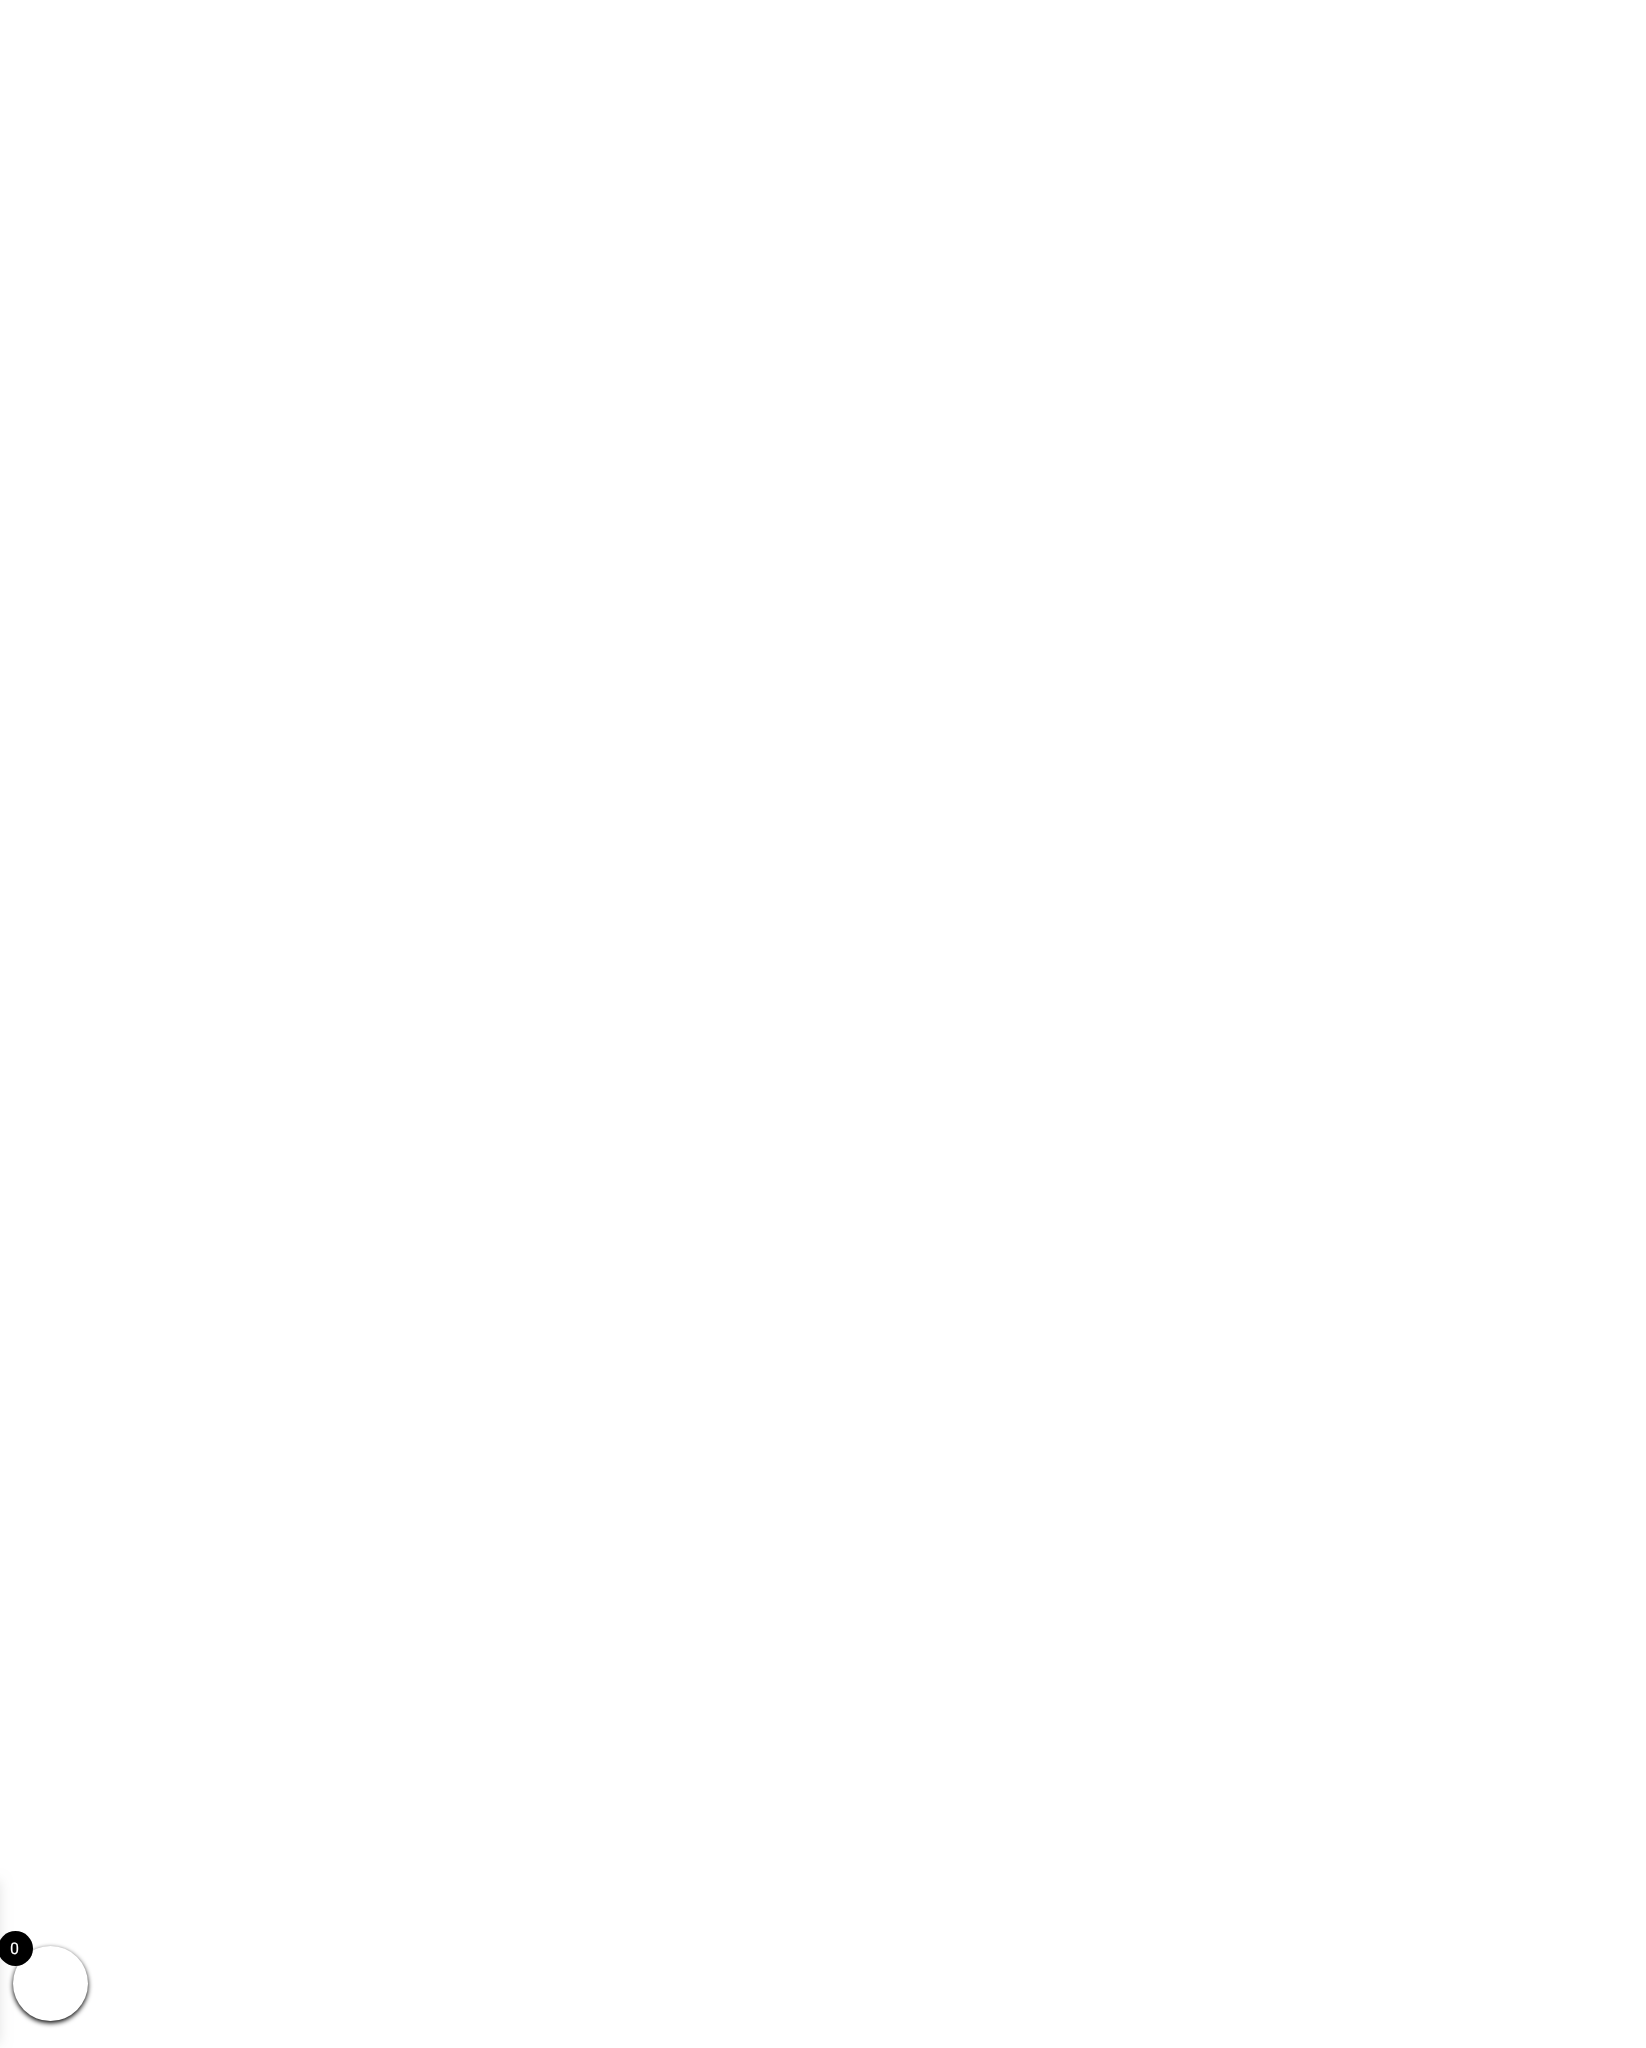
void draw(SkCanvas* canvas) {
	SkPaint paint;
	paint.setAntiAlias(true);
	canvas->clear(0xffffffff);
	paint.setColor(0x1a000000);
	paint.setMaskFilter(SkMaskFilter::MakeBlur(kNormal_SkBlurStyle, 6));
	canvas->drawRect(SkRect::MakeXYWH(-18, 1881, 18, 162), paint);
	paint.setMaskFilter(nullptr);
	paint.setColor(0xff000000);
	paint.setMaskFilter(SkMaskFilter::MakeBlur(kNormal_SkBlurStyle, 2.5));
	canvas->drawRoundRect(SkRect::MakeXYWH(13, 1948, 75, 75), 37.5, 37.5, paint);
	paint.setMaskFilter(nullptr);
	paint.setColor(0xffffffff);
	canvas->drawCircle(50.5, 1983.5, 37.5, paint);
	paint.setColor(0xff000000);
	canvas->drawCircle(15.5, 1948.5, 17.5, paint);
	SkFont f1(fontMgr->matchFamilyStyle("Roboto", SkFontStyle::Normal()), 16);
	f1.setSubpixel(true);
	paint.setColor(0xffffffff);
	canvas->drawString("0", 10, 1954, f1, paint);
}
